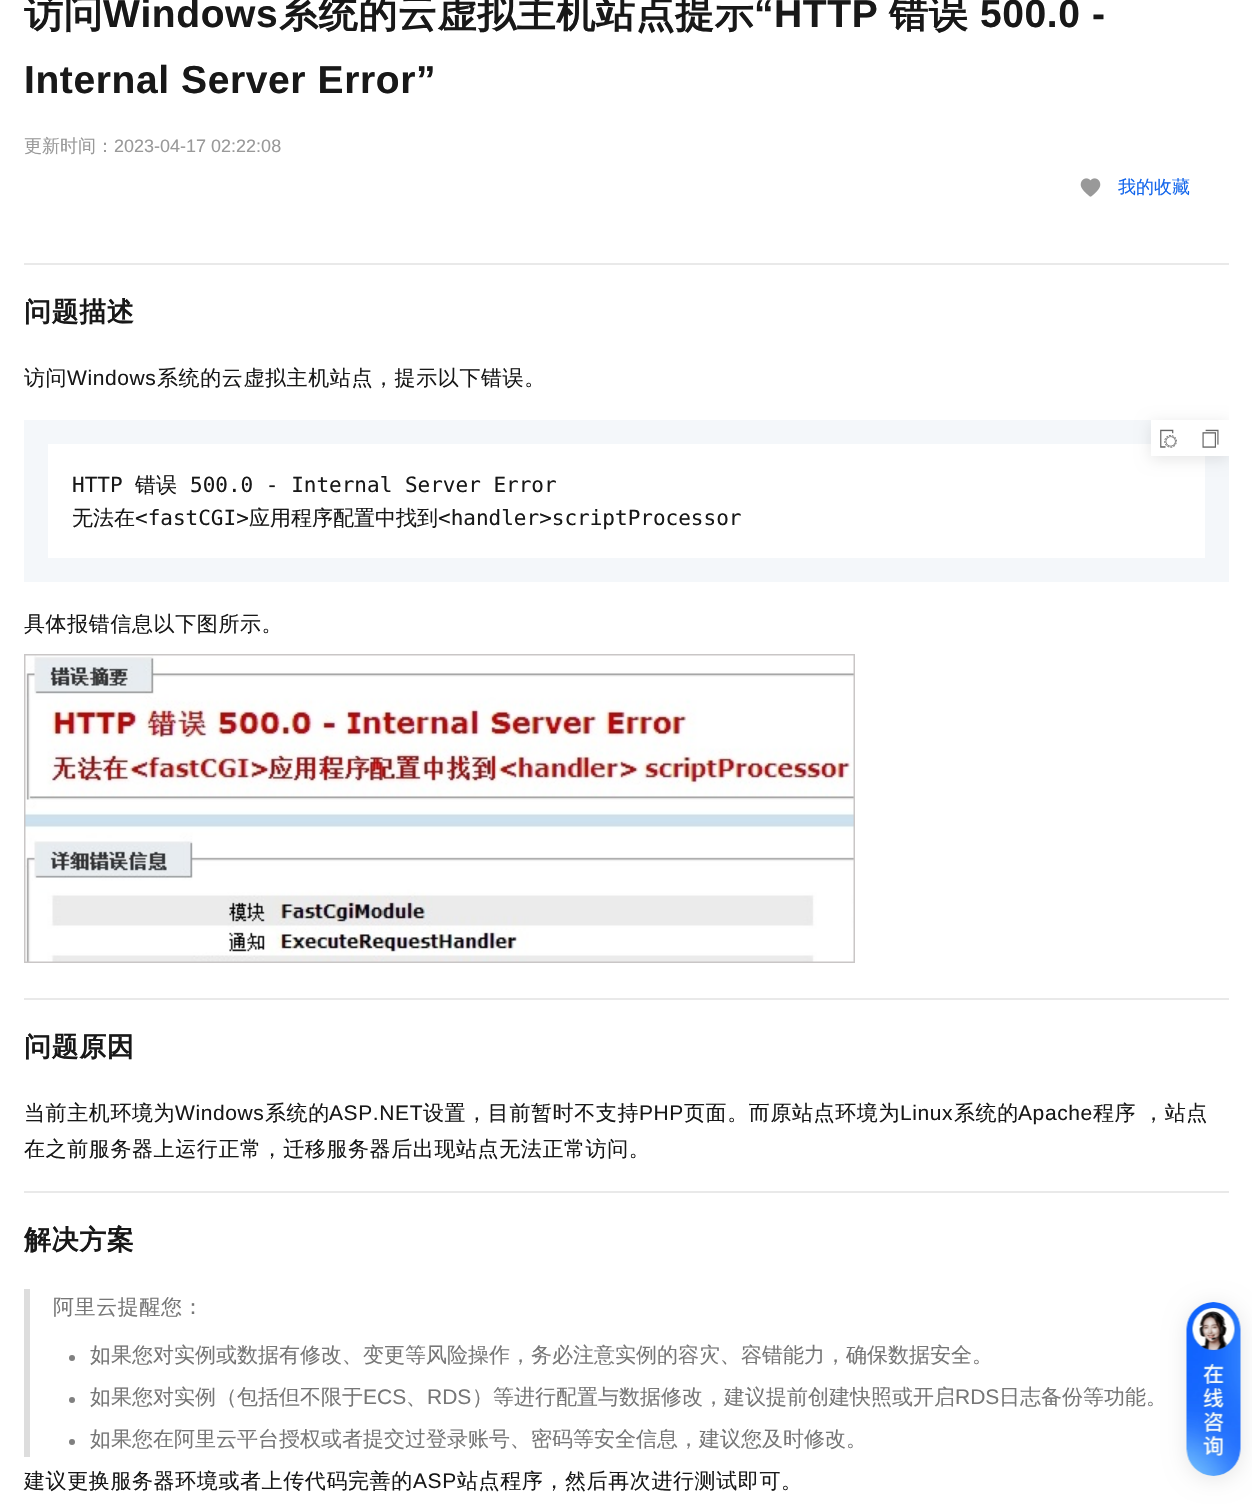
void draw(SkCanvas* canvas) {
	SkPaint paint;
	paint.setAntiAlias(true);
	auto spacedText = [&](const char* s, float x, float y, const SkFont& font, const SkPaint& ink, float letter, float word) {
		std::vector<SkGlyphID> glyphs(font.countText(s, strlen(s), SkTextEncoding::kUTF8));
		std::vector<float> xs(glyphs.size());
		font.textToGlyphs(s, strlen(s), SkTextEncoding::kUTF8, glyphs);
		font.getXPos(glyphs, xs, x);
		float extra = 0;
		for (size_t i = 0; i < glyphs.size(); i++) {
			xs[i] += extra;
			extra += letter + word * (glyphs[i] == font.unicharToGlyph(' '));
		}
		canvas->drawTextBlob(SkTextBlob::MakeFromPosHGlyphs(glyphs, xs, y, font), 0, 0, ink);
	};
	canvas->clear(0xffffffff);
	SkFont f1(fontMgr->matchFamilyStyle("WenQuanYi Zen Hei", SkFontStyle::Bold()), 39);
	f1.setSubpixel(true);
	paint.setColor(0xff181818);
	spacedText("访问", 24, 27, f1, paint, 0.6, 0);
	SkFont f2(fontMgr->matchFamilyStyle("Liberation Sans", SkFontStyle::Bold()), 39);
	f2.setSubpixel(true);
	spacedText("Windows", 103, 27, f2, paint, 0.6, 0);
	spacedText("系统的云虚拟主机站点提示", 279, 27, f1, paint, 0.6, 0);
	spacedText("“HTTP", 754, 27, f2, paint, 0.6, 0);
	spacedText("错误", 889, 27, f1, paint, 0.6, 0);
	spacedText("500.0 -", 980, 27, f2, paint, 0.6, 0);
	spacedText("Internal Server Error”", 24, 93, f2, paint, 0.6, 0);
	SkFont f3(fontMgr->matchFamilyStyle("WenQuanYi Zen Hei", SkFontStyle(500, SkFontStyle::kNormal_Width, SkFontStyle::kUpright_Slant)), 18);
	f3.setSubpixel(true);
	paint.setColor(0xff999999);
	canvas->drawString("更新时间：", 24, 152, f3, paint);
	SkFont f4(fontMgr->matchFamilyStyle("Liberation Sans", SkFontStyle::Normal()), 18);
	f4.setSubpixel(true);
	canvas->drawString("2023-04-17 02:22:08", 114, 152, f4, paint);
	canvas->drawImageRect(SkImages::DeferredFromEncodedData(SkData::MakeFromFileName("img1.png")), SkRect::MakeXYWH(1080, 178, 21, 19), SkSamplingOptions());
	paint.setColor(0xff1366ec);
	canvas->drawString("我的收藏", 1118, 193, f3, paint);
	paint.setColor(0xffe9e9e9);
	canvas->drawRect(SkRect::MakeXYWH(24, 263, 1205, 2), paint);
	SkFont f5(fontMgr->matchFamilyStyle("WenQuanYi Zen Hei", SkFontStyle::Bold()), 27);
	f5.setSubpixel(true);
	paint.setColor(0xff181818);
	spacedText("问题描述", 24, 321, f5, paint, 0.6, 0);
	SkFont f6(fontMgr->matchFamilyStyle("WenQuanYi Zen Hei", SkFontStyle(500, SkFontStyle::kNormal_Width, SkFontStyle::kUpright_Slant)), 21);
	f6.setSubpixel(true);
	spacedText("访问", 24, 385, f6, paint, 0.6, 0);
	SkFont f7(fontMgr->matchFamilyStyle("Liberation Sans", SkFontStyle::Normal()), 21);
	f7.setSubpixel(true);
	spacedText("Windows", 67, 385, f7, paint, 0.6, 0);
	spacedText("系统的云虚拟主机站点，提示以下错误。", 157, 385, f6, paint, 0.6, 0);
	paint.setColor(0xfff4f7fa);
	canvas->drawRect(SkRect::MakeXYWH(24, 420, 1205, 162), paint);
	paint.setColor(0xffffffff);
	canvas->drawRect(SkRect::MakeXYWH(48, 444, 1157, 114), paint);
	canvas->save();
	canvas->clipRect(SkRect::MakeXYWH(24, 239, 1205, 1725));
	paint.setColor(0x1a000000);
	paint.setMaskFilter(SkMaskFilter::MakeBlur(kNormal_SkBlurStyle, 7.5));
	canvas->drawRect(SkRect::MakeXYWH(1151, 423, 78, 36), paint);
	paint.setMaskFilter(nullptr);
	canvas->restore();
	paint.setColor(0xffffffff);
	canvas->drawRect(SkRect::MakeXYWH(1151, 420, 78, 36), paint);
	canvas->drawImageRect(SkImages::DeferredFromEncodedData(SkData::MakeFromFileName("img2.png")), SkRect::MakeXYWH(1160, 429, 17, 19), SkSamplingOptions());
	canvas->drawImageRect(SkImages::DeferredFromEncodedData(SkData::MakeFromFileName("img3.png")), SkRect::MakeXYWH(1202, 429, 17, 19), SkSamplingOptions());
	SkFont f8(fontMgr->matchFamilyStyle("DejaVu Sans Mono", SkFontStyle::Normal()), 21);
	f8.setSubpixel(true);
	paint.setColor(0xff181818);
	canvas->drawString("HTTP", 72, 492, f8, paint);
	canvas->drawString("错误", 135, 492, f6, paint);
	canvas->drawString("500.0 - Internal Server Error", 190, 492, f8, paint);
	canvas->drawString("无法在", 72, 525, f6, paint);
	canvas->drawString("<fastCGI>", 135, 525, f8, paint);
	canvas->drawString("应用程序配置中找到", 249, 525, f6, paint);
	canvas->drawString("<handler>scriptProcessor", 438, 525, f8, paint);
	spacedText("具体报错信息以下图所示。", 24, 631, f6, paint, 0.6, 0);
	canvas->drawImageRect(SkImages::DeferredFromEncodedData(SkData::MakeFromFileName("img4.png")), SkRect::MakeXYWH(24, 654, 831, 309), SkSamplingOptions());
	paint.setColor(0xffe9e9e9);
	canvas->drawRect(SkRect::MakeXYWH(24, 998, 1205, 2), paint);
	paint.setColor(0xff181818);
	spacedText("问题原因", 24, 1056, f5, paint, 0.6, 0);
	spacedText("当前主机环境为", 24, 1120, f6, paint, 0.6, 0);
	spacedText("Windows", 175, 1120, f7, paint, 0.6, 0);
	spacedText("系统的", 265, 1120, f6, paint, 0.6, 0);
	spacedText("ASP.NET", 329, 1120, f7, paint, 0.6, 0);
	spacedText("设置，目前暂时不支持", 423, 1120, f6, paint, 0.6, 0);
	spacedText("PHP", 639, 1120, f7, paint, 0.6, 0);
	spacedText("页面。而原站点环境为", 684, 1120, f6, paint, 0.6, 0);
	spacedText("Linux", 900, 1120, f7, paint, 0.6, 0);
	spacedText("系统的", 954, 1120, f6, paint, 0.6, 0);
	spacedText("Apache", 1018, 1120, f7, paint, 0.6, 0);
	spacedText("程序 ，站点", 1093, 1120, f6, paint, 0.6, 0);
	spacedText("在之前服务器上运行正常，迁移服务器后出现站点无法正常访问。", 24, 1156, f6, paint, 0.6, 0);
	paint.setColor(0xffe9e9e9);
	canvas->drawRect(SkRect::MakeXYWH(24, 1191, 1205, 2), paint);
	paint.setColor(0xff181818);
	spacedText("解决方案", 24, 1249, f5, paint, 0.6, 0);
	paint.setColor(0xffdddddd);
	canvas->drawRect(SkRect::MakeXYWH(24, 1289, 6, 168), paint);
	paint.setColor(0xff777777);
	spacedText("阿里云提醒您：", 53, 1314, f6, paint, 0.6, 0);
	paint.setColor(0xff808080);
	canvas->drawCircle(72, 1358, 3, paint);
	paint.setColor(0xff777777);
	canvas->drawString("如果您对实例或数据有修改、变更等风险操作，务必注意实例的容灾、容错能力，确保数据安全。", 90, 1362, f6, paint);
	paint.setColor(0xff808080);
	canvas->drawCircle(72, 1400, 3, paint);
	paint.setColor(0xff777777);
	canvas->drawString("如果您对实例（包括但不限于", 90, 1404, f6, paint);
	canvas->drawString("ECS", 363, 1404, f7, paint);
	canvas->drawString("RDS", 427, 1404, f7, paint);
	canvas->drawString("）等进行配置与数据修改，建议提前创建快照或开启", 472, 1404, f6, paint);
	canvas->drawString("RDS", 955, 1404, f7, paint);
	canvas->drawString("日志备份等功能。", 999, 1404, f6, paint);
	canvas->drawString("、", 406, 1404, f6, paint);
	paint.setColor(0xff808080);
	canvas->drawCircle(72, 1442, 3, paint);
	paint.setColor(0xff777777);
	canvas->drawString("如果您在阿里云平台授权或者提交过登录账号、密码等安全信息，建议您及时修改。", 90, 1446, f6, paint);
	paint.setColor(0xff181818);
	spacedText("建议更换服务器环境或者上传代码完善的", 24, 1488, f6, paint, 0.6, 0);
	spacedText("ASP", 413, 1488, f7, paint, 0.6, 0);
	spacedText("站点程序，然后再次进行测试即可。", 457, 1488, f6, paint, 0.6, 0);
	paint.setColor(0x1a000000);
	paint.setMaskFilter(SkMaskFilter::MakeBlur(kNormal_SkBlurStyle, 11));
	canvas->drawRoundRect(SkRect::MakeXYWH(1187, 1305, 54, 174), 27, 27, paint);
	paint.setMaskFilter(nullptr);
	canvas->drawImageRect(SkImages::DeferredFromEncodedData(SkData::MakeFromFileName("img5.png")), SkRect::MakeXYWH(1186, 1302, 55, 174), SkSamplingOptions());
}
